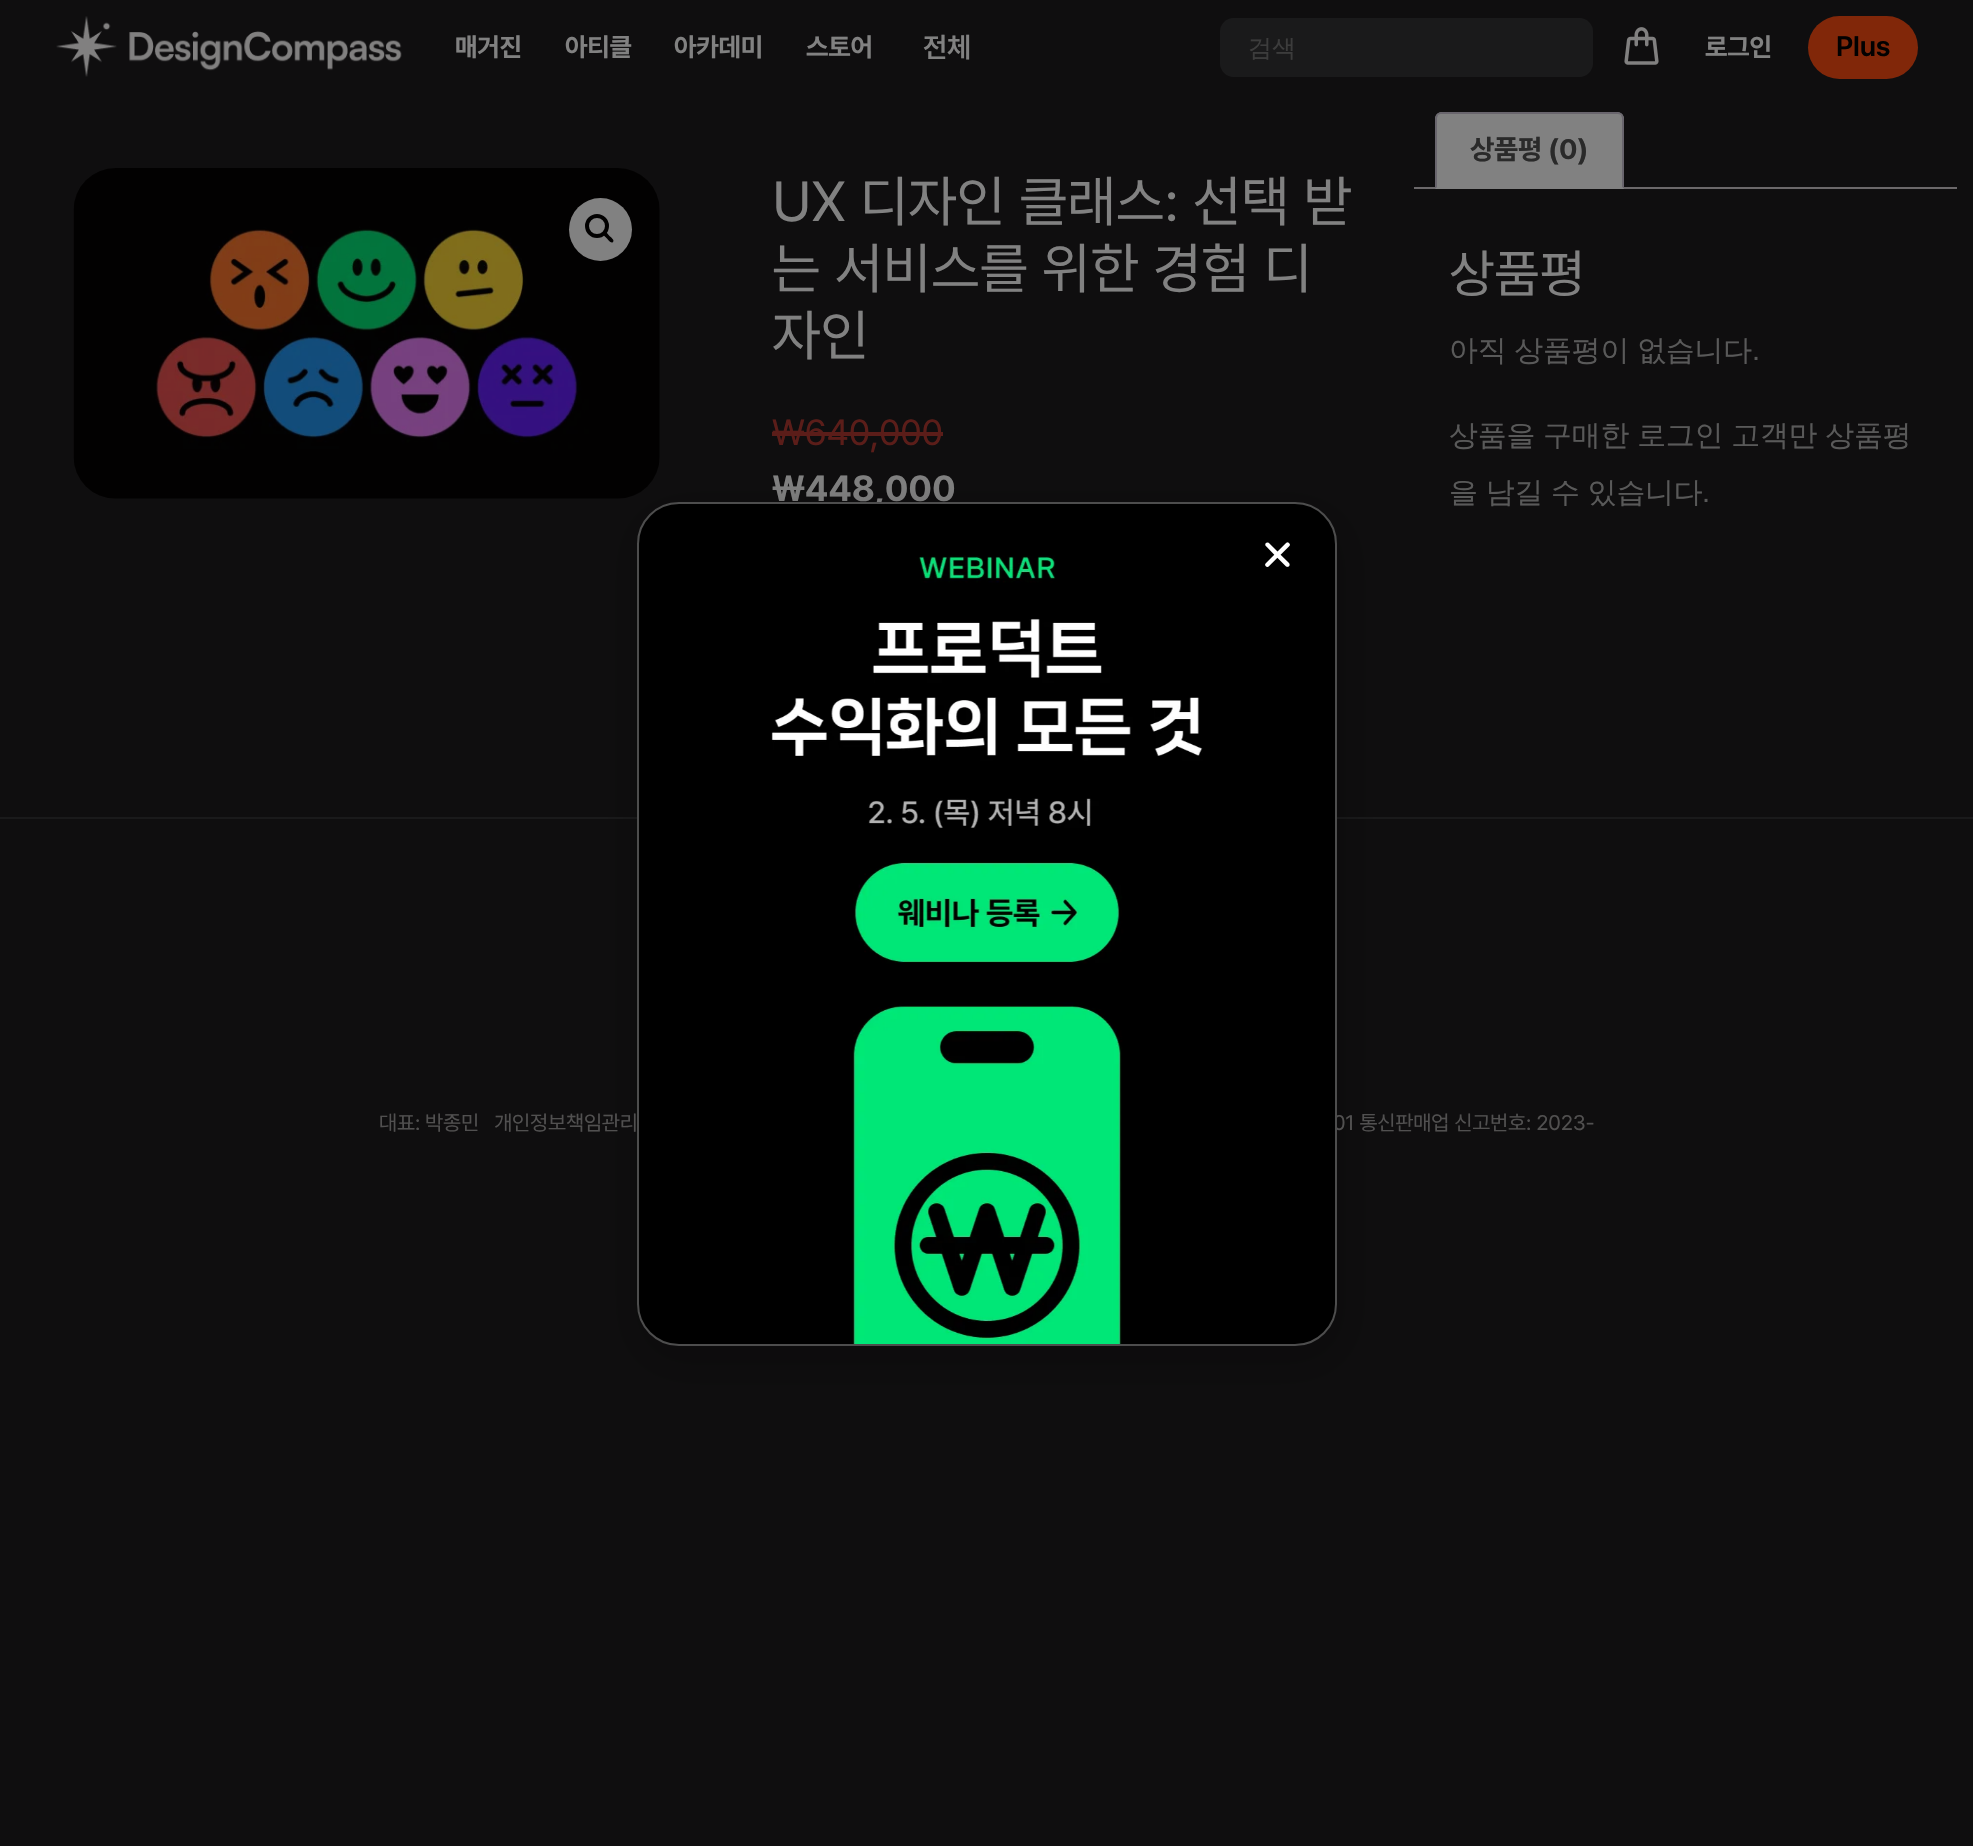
void draw(SkCanvas* canvas) {
	SkPaint paint;
	paint.setAntiAlias(true);
	auto spacedText = [&](const char* s, float x, float y, const SkFont& font, const SkPaint& ink, float letter, float word) {
		std::vector<SkGlyphID> glyphs(font.countText(s, strlen(s), SkTextEncoding::kUTF8));
		std::vector<float> xs(glyphs.size());
		font.textToGlyphs(s, strlen(s), SkTextEncoding::kUTF8, glyphs);
		font.getXPos(glyphs, xs, x);
		float extra = 0;
		for (size_t i = 0; i < glyphs.size(); i++) {
			xs[i] += extra;
			extra += letter + word * (glyphs[i] == font.unicharToGlyph(' '));
		}
		canvas->drawTextBlob(SkTextBlob::MakeFromPosHGlyphs(glyphs, xs, y, font), 0, 0, ink);
	};
	auto svgPath = [&](const char* data, bool evenOdd = false) {
		SkPath result = *SkParsePath::FromSVGString(data);
		if (evenOdd) result.setFillType(SkPathFillType::kEvenOdd);
		return result;
	};
	canvas->clear(0xff0f0e0f);
	canvas->drawImageRect(SkImages::DeferredFromEncodedData(SkData::MakeFromFileName("img1.png")), SkRect::MakeXYWH(56, 16, 346, 61), SkSamplingOptions());
	SkFont f1(fontMgr->matchFamilyStyle("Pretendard", SkFontStyle::Bold()), 26);
	f1.setSubpixel(true);
	paint.setColor(0xff818181);
	spacedText("매거진", 455, 56, f1, paint, -0.2, 0);
	spacedText("아티클", 565, 56, f1, paint, -0.2, 0);
	spacedText("아카데미", 674, 56, f1, paint, -0.2, 0);
	spacedText("스토어", 806, 56, f1, paint, -0.2, 0);
	SkFont f2(fontMgr->matchFamilyStyle("Pretendard", SkFontStyle(600, SkFontStyle::kNormal_Width, SkFontStyle::kUpright_Slant)), 28);
	f2.setSubpixel(true);
	spacedText("전체", 923, 57, f2, paint, -0.2, 0);
	paint.setColor(0xff1a1a1b);
	canvas->drawRoundRect(SkRect::MakeXYWH(1220, 18, 373, 59), 14, 14, paint);
	SkFont f3(fontMgr->matchFamilyStyle("WenQuanYi Zen Hei", SkFontStyle(500, SkFontStyle::kNormal_Width, SkFontStyle::kUpright_Slant)), 24);
	f3.setSubpixel(true);
	paint.setColor(0xff3c3c3c);
	canvas->drawString("검색", 1248, 56, f3, paint);
	canvas->drawImageRect(SkImages::DeferredFromEncodedData(SkData::MakeFromFileName("img2.png")), SkRect::MakeXYWH(1624, 27, 35, 38), SkSamplingOptions());
	paint.setColor(0xff818181);
	spacedText("로그인", 1705, 56, f1, paint, -0.2, 0);
	paint.setColor(0xff812709);
	canvas->drawRoundRect(SkRect::MakeXYWH(1808, 16, 110, 63), 31.5, 31.5, paint);
	paint.setColor(0xff020101);
	spacedText("Plus", 1836, 56, f2, paint, -0.2, 0);
	canvas->drawImageRect(SkImages::DeferredFromEncodedData(SkData::MakeFromFileName("img3.png")), SkRect::MakeXYWH(73, 168, 587, 331), SkSamplingOptions());
	paint.setColor(0xff818181);
	canvas->drawCircle(600.5, 229.5, 31.5, paint);
	paint.setStroke(true);
	paint.setStrokeWidth(4);
	paint.setColor(0xff020101);
	canvas->drawCircle(597, 226, 10, paint);
	paint.setStroke(false);
	canvas->drawPath(svgPath("M603.5 232C605.5 230 608.5 235 609.5 236C610.5 237 615 240 613 242C611 244 608 239.5 607 238.5C606 237.5 601.5 234 603.5 232Z"), paint);
	SkFont f4(fontMgr->matchFamilyStyle("Pretendard", SkFontStyle::Normal()), 56);
	f4.setSubpixel(true);
	paint.setColor(0xff818181);
	canvas->drawString("UX 디자인 클래스: 선택 받", 772, 221, f4, paint);
	canvas->drawString("는 서비스를 위한 경험 디", 772, 288, f4, paint);
	canvas->drawString("자인", 772, 355, f4, paint);
	SkFont f5(fontMgr->matchFamilyStyle("Pretendard", SkFontStyle::Normal()), 36);
	f5.setSubpixel(true);
	paint.setColor(0xff5b1d19);
	spacedText("₩640,000", 772, 445, f5, paint, -0.2, 0);
	canvas->drawRect(SkRect::MakeXYWH(772, 432, 171, 4), paint);
	SkFont f6(fontMgr->matchFamilyStyle("Pretendard", SkFontStyle::Bold()), 36);
	f6.setSubpixel(true);
	paint.setColor(0xff818181);
	spacedText("₩448,000", 772, 501, f6, paint, -0.2, 0);
	paint.setColor(0xff6b686a);
	canvas->drawRect(SkRect::MakeXYWH(1414, 187, 543, 2), paint);
	paint.setColor(0xff818181);
	canvas->drawPath(svgPath("M1442 112H1617C1621 112 1624 115 1624 119V189H1435V119C1435 115 1438 112 1442 112Z"), paint);
	paint.setColor(0xff69656d);
	canvas->drawPath(svgPath("M1442 112C1440 112 1438 113 1437 114L1438 115C1439 114 1440 114 1442 114H1617C1618 114 1620 114 1621 115L1622 114C1621 113 1619 112 1617 112Z"), paint);
	canvas->drawPath(svgPath("M1624 189V119C1624 117 1623 115 1622 114L1621 115L1622 118V187Z"), paint);
	paint.setColor(0xff818181);
	canvas->drawPath(svgPath("M1624 189L1622 187H1437L1435 189Z"), paint);
	paint.setColor(0xff69656d);
	canvas->drawPath(svgPath("M1435 189L1437 187V118L1438 115L1437 114C1436 115 1435 117 1435 119Z"), paint);
	SkFont f7(fontMgr->matchFamilyStyle("Pretendard", SkFontStyle::Bold()), 28);
	f7.setSubpixel(true);
	paint.setColor(0xff2a2a2a);
	spacedText("상품평 (0)", 1470, 159, f7, paint, -0.2, 0);
	SkFont f8(fontMgr->matchFamilyStyle("Pretendard", SkFontStyle::Normal()), 52.5);
	f8.setSubpixel(true);
	paint.setColor(0xff818181);
	canvas->drawString("상품평", 1449, 292, f8, paint);
	SkFont f9(fontMgr->matchFamilyStyle("WenQuanYi Zen Hei", SkFontStyle(500, SkFontStyle::kNormal_Width, SkFontStyle::kUpright_Slant)), 28.9);
	f9.setSubpixel(true);
	paint.setColor(0xff595959);
	spacedText("아직 상품평이 없습니다", 1449, 360, f9, paint, -0.2, -0.5);
	SkFont f10(fontMgr->matchFamilyStyle("Liberation Sans", SkFontStyle::Normal()), 28.9);
	f10.setSubpixel(true);
	spacedText(".", 1752, 360, f10, paint, -0.2, 0);
	spacedText("상품을 구매한 로그인 고객만 상품평", 1449, 445, f9, paint, -0.2, -0.5);
	spacedText("을 남길 수 있습니다", 1449, 502, f9, paint, -0.2, -0.5);
	spacedText(".", 1702, 502, f10, paint, -0.2, 0);
	paint.setColor(0xff1a1a1b);
	canvas->drawRect(SkRect::MakeXYWH(0, 817, 1973, 2), paint);
	paint.setColor(0x33000000);
	paint.setMaskFilter(SkMaskFilter::MakeBlur(kNormal_SkBlurStyle, 20));
	canvas->drawRoundRect(SkRect::MakeXYWH(635, 511, 711, 854), 47, 47, paint);
	paint.setMaskFilter(nullptr);
	SkFont f11(fontMgr->matchFamilyStyle("Pretendard", SkFontStyle::Normal()), 21);
	f11.setSubpixel(true);
	paint.setColor(0xff515050);
	spacedText("01 통신판매업 신고번호: 2023-", 1333, 1130, f11, paint, -0.2, 0);
	paint.setColor(0xff000000);
	canvas->drawRoundRect(SkRect::MakeXYWH(637, 502, 700, 844), 42, 42, paint);
	paint.setStroke(true);
	paint.setStrokeWidth(2);
	paint.setColor(0x4dffffff);
	canvas->drawRoundRect(SkRect::MakeXYWH(638, 503, 698, 842), 41, 41, paint);
	canvas->drawImageRect(SkImages::DeferredFromEncodedData(SkData::MakeFromFileName("img4.png")), SkRect::MakeXYWH(771, 555, 432, 789), SkSamplingOptions());
	canvas->drawImageRect(SkImages::DeferredFromEncodedData(SkData::MakeFromFileName("img5.png")), SkRect::MakeXYWH(1265, 542, 25, 25), SkSamplingOptions());
	paint.setStroke(false);
	paint.setColor(0xff515050);
	spacedText("대표: 박종민   개인정보책임관리", 379, 1130, f11, paint, -0.2, 0);
}
